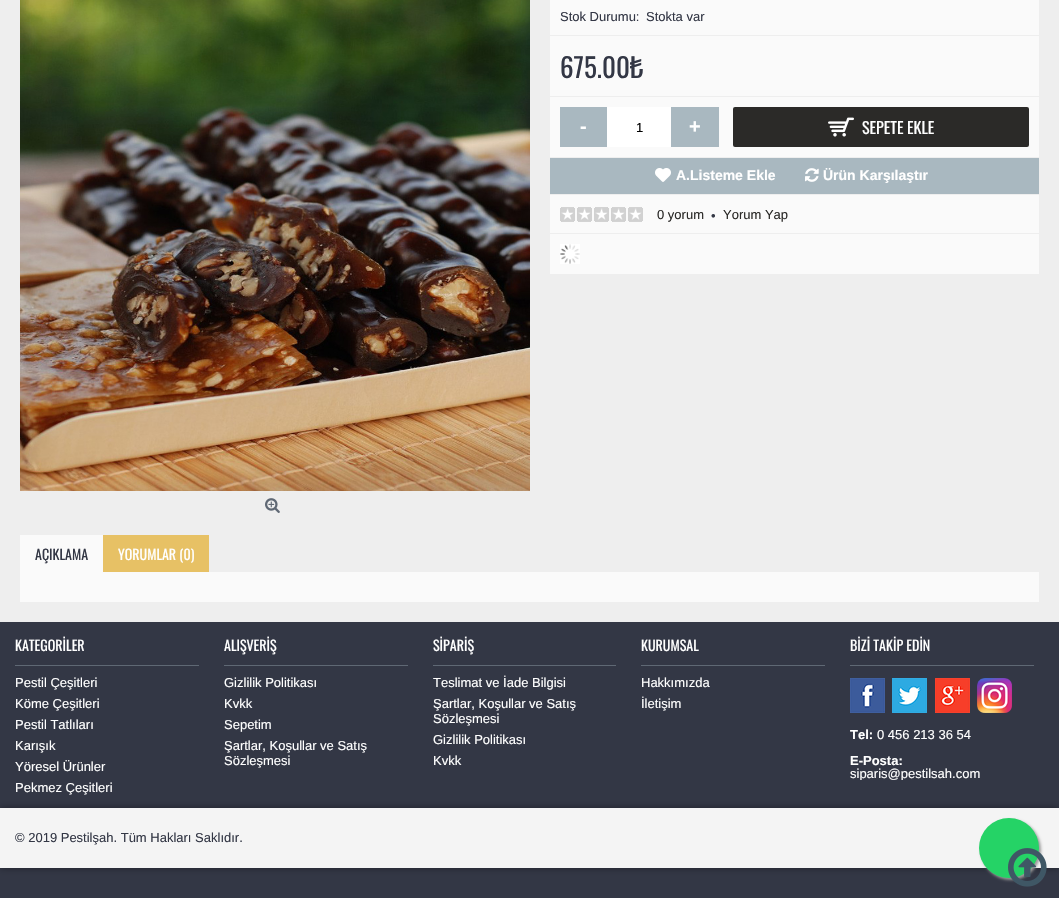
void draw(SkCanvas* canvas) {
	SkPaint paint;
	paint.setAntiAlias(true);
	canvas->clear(0xffeeeeee);
	canvas->drawImageRect(SkImages::DeferredFromEncodedData(SkData::MakeFromFileName("img1.png")), SkRect::MakeXYWH(20, 0, 510, 491), SkSamplingOptions());
	canvas->drawImageRect(SkImages::DeferredFromEncodedData(SkData::MakeFromFileName("img2.png")), SkRect::MakeXYWH(265, 498, 15, 15), SkSamplingOptions());
	paint.setColor(0xfffafafa);
	canvas->drawRect(SkRect::MakeXYWH(550, 0, 489, 35), paint);
	SkFont f1(fontMgr->matchFamilyStyle("Liberation Sans", SkFontStyle::Normal()), 13);
	f1.setSubpixel(true);
	paint.setColor(0xff333745);
	canvas->drawString("Stok Durumu:", 560, 21, f1, paint);
	canvas->drawString("Stokta var", 646, 21, f1, paint);
	paint.setColor(0xfffafafa);
	canvas->drawRect(SkRect::MakeXYWH(550, 36, 489, 60), paint);
	SkFont f2(fontMgr->matchFamilyStyle("Oswald", SkFontStyle::Normal()), 27);
	f2.setSubpixel(true);
	paint.setColor(0xff333745);
	canvas->drawString("675.00₺", 560, 78, f2, paint);
	paint.setColor(0xfffafafa);
	canvas->drawRect(SkRect::MakeXYWH(550, 97, 489, 60), paint);
	paint.setColor(0xffa9b8c0);
	canvas->drawRect(SkRect::MakeXYWH(560, 107, 47, 40), paint);
	SkFont f3(fontMgr->matchFamilyStyle("Liberation Sans", SkFontStyle::Bold()), 20);
	f3.setSubpixel(true);
	paint.setColor(0xffffffff);
	canvas->drawString("-", 580, 133, f3, paint);
	canvas->drawRect(SkRect::MakeXYWH(607, 107, 64, 40), paint);
	paint.setColor(0xff000000);
	canvas->drawString("1", 636, 132, f1, paint);
	paint.setColor(0xffa9b8c0);
	canvas->drawRect(SkRect::MakeXYWH(671, 107, 48, 40), paint);
	paint.setColor(0xffffffff);
	canvas->drawString("+", 689, 133, f3, paint);
	paint.setColor(0xff2b2a28);
	canvas->drawRoundRect(SkRect::MakeXYWH(733, 107, 296, 40), 2, 2, paint);
	canvas->drawImageRect(SkImages::DeferredFromEncodedData(SkData::MakeFromFileName("img3.png")), SkRect::MakeXYWH(828, 117, 26, 20), SkSamplingOptions());
	SkFont f4(fontMgr->matchFamilyStyle("Oswald", SkFontStyle::Normal()), 16);
	f4.setSubpixel(true);
	paint.setColor(0xffffffff);
	canvas->drawString("SEPETE EKLE", 862, 134, f4, paint);
	paint.setColor(0xffa9b8c0);
	canvas->drawRect(SkRect::MakeXYWH(550, 158, 489, 36), paint);
	canvas->drawImageRect(SkImages::DeferredFromEncodedData(SkData::MakeFromFileName("img4.png")), SkRect::MakeXYWH(655, 168, 16, 14), SkSamplingOptions());
	SkFont f5(fontMgr->matchFamilyStyle("Liberation Sans", SkFontStyle::Bold()), 14);
	f5.setSubpixel(true);
	paint.setColor(0xffffffff);
	canvas->drawString("A.Listeme Ekle", 676, 180, f5, paint);
	canvas->drawImageRect(SkImages::DeferredFromEncodedData(SkData::MakeFromFileName("img5.png")), SkRect::MakeXYWH(805, 168, 14, 14), SkSamplingOptions());
	canvas->drawString("Ürün Karşılaştır", 823, 180, f5, paint);
	paint.setColor(0xfffafafa);
	canvas->drawRect(SkRect::MakeXYWH(550, 195, 489, 38), paint);
	canvas->drawImageRect(SkImages::DeferredFromEncodedData(SkData::MakeFromFileName("img6.png")), SkRect::MakeXYWH(560, 207, 83, 15), SkSamplingOptions());
	paint.setColor(0xff2b2a28);
	canvas->drawString("0 yorum", 657, 219, f1, paint);
	paint.setColor(0xff333745);
	canvas->drawString("•", 711, 220, f1, paint);
	paint.setColor(0xff2b2a28);
	canvas->drawString("Yorum Yap", 723, 219, f1, paint);
	paint.setColor(0xfffafafa);
	canvas->drawRect(SkRect::MakeXYWH(550, 234, 489, 40), paint);
	canvas->drawImageRect(SkImages::DeferredFromEncodedData(SkData::MakeFromFileName("img7.png")), SkRect::MakeXYWH(560, 244, 20, 20), SkSamplingOptions());
	canvas->drawRect(SkRect::MakeXYWH(20, 535, 83, 37), paint);
	SkFont f6(fontMgr->matchFamilyStyle("Oswald", SkFontStyle::Normal()), 14);
	f6.setSubpixel(true);
	paint.setColor(0xff333745);
	canvas->drawString("AÇIKLAMA", 35, 560, f6, paint);
	paint.setColor(0xffe7c165);
	canvas->drawRect(SkRect::MakeXYWH(103, 535, 106, 37), paint);
	paint.setColor(0xffffffff);
	canvas->drawString("YORUMLAR (0)", 118, 560, f6, paint);
	paint.setColor(0xfffafafa);
	canvas->drawRect(SkRect::MakeXYWH(20, 572, 1019, 30), paint);
	paint.setColor(0xff333745);
	canvas->drawRect(SkRect::MakeXYWH(0, 622, 1059, 276), paint);
	paint.setColor(0xff5f6874);
	canvas->drawRect(SkRect::MakeXYWH(15, 665, 184, 1), paint);
	paint.setColor(0xffffffff);
	canvas->drawString("KATEGORİLER", 15, 651, f6, paint);
	canvas->drawString("Pestil Çeşitleri", 15, 687, f1, paint);
	canvas->drawString("Köme Çeşitleri", 15, 708, f1, paint);
	canvas->drawString("Pestil Tatlıları", 15, 729, f1, paint);
	canvas->drawString("Karışık", 15, 750, f1, paint);
	canvas->drawString("Yöresel Ürünler", 15, 771, f1, paint);
	canvas->drawString("Pekmez Çeşitleri", 15, 792, f1, paint);
	paint.setColor(0xff5f6874);
	canvas->drawRect(SkRect::MakeXYWH(224, 665, 184, 1), paint);
	paint.setColor(0xffffffff);
	canvas->drawString("ALIŞVERİŞ", 224, 651, f6, paint);
	canvas->drawString("Gizlilik Politikası", 224, 687, f1, paint);
	canvas->drawString("Kvkk", 224, 708, f1, paint);
	canvas->drawString("Sepetim", 224, 729, f1, paint);
	canvas->drawString("Şartlar, Koşullar ve Satış", 224, 750, f1, paint);
	canvas->drawString("Sözleşmesi", 224, 765, f1, paint);
	paint.setColor(0xff5f6874);
	canvas->drawRect(SkRect::MakeXYWH(433, 665, 183, 1), paint);
	paint.setColor(0xffffffff);
	canvas->drawString("SİPARİŞ", 433, 651, f6, paint);
	canvas->drawString("Teslimat ve İade Bilgisi", 433, 687, f1, paint);
	canvas->drawString("Şartlar, Koşullar ve Satış", 433, 708, f1, paint);
	canvas->drawString("Sözleşmesi", 433, 723, f1, paint);
	canvas->drawString("Gizlilik Politikası", 433, 744, f1, paint);
	canvas->drawString("Kvkk", 433, 765, f1, paint);
	paint.setColor(0xff5f6874);
	canvas->drawRect(SkRect::MakeXYWH(641, 665, 184, 1), paint);
	paint.setColor(0xffffffff);
	canvas->drawString("KURUMSAL", 641, 651, f6, paint);
	canvas->drawString("Hakkımızda", 641, 687, f1, paint);
	canvas->drawString("İletişim", 641, 708, f1, paint);
	paint.setColor(0xff5f6874);
	canvas->drawRect(SkRect::MakeXYWH(850, 665, 184, 1), paint);
	paint.setColor(0xffffffff);
	canvas->drawString("BİZİ TAKİP EDİN", 850, 651, f6, paint);
	canvas->drawImageRect(SkImages::DeferredFromEncodedData(SkData::MakeFromFileName("img8.png")), SkRect::MakeXYWH(850, 678, 35, 35), SkSamplingOptions());
	canvas->drawImageRect(SkImages::DeferredFromEncodedData(SkData::MakeFromFileName("img9.png")), SkRect::MakeXYWH(892, 678, 35, 35), SkSamplingOptions());
	canvas->drawImageRect(SkImages::DeferredFromEncodedData(SkData::MakeFromFileName("img10.png")), SkRect::MakeXYWH(935, 678, 35, 35), SkSamplingOptions());
	canvas->drawImageRect(SkImages::DeferredFromEncodedData(SkData::MakeFromFileName("img11.png")), SkRect::MakeXYWH(977, 678, 35, 35), SkSamplingOptions());
	SkFont f7(fontMgr->matchFamilyStyle("Liberation Sans", SkFontStyle::Bold()), 13);
	f7.setSubpixel(true);
	canvas->drawString("Tel:", 850, 739, f7, paint);
	canvas->drawString("0 456 213 36 54", 877, 739, f1, paint);
	canvas->drawString("E-Posta:", 850, 765, f7, paint);
	canvas->save();
	canvas->clipRect(SkRect::MakeXYWH(850, 678, 184, 102));
	canvas->drawString("siparis@pestilsah.com", 850, 778, f1, paint);
	canvas->restore();
	paint.setColor(0x66000000);
	paint.setMaskFilter(SkMaskFilter::MakeBlur(kNormal_SkBlurStyle, 3.5));
	canvas->drawRect(SkRect::MakeXYWH(0, 808, 1059, 60), paint);
	paint.setMaskFilter(nullptr);
	paint.setColor(0xfff4f4f4);
	canvas->drawRect(SkRect::MakeXYWH(0, 808, 1059, 60), paint);
	paint.setColor(0xff333745);
	canvas->drawString("© 2019 Pestilşah. Tüm Hakları Saklıdır.", 15, 842, f1, paint);
	paint.setColor(0xff999999);
	paint.setMaskFilter(SkMaskFilter::MakeBlur(kNormal_SkBlurStyle, 1.5));
	canvas->drawRoundRect(SkRect::MakeXYWH(981, 820, 60, 60), 30, 30, paint);
	paint.setMaskFilter(nullptr);
	paint.setColor(0xff25d366);
	canvas->drawCircle(1009, 848, 30, paint);
	canvas->drawImageRect(SkImages::DeferredFromEncodedData(SkData::MakeFromFileName("img12.png")), SkRect::MakeXYWH(1008, 848, 39, 39), SkSamplingOptions());
}
